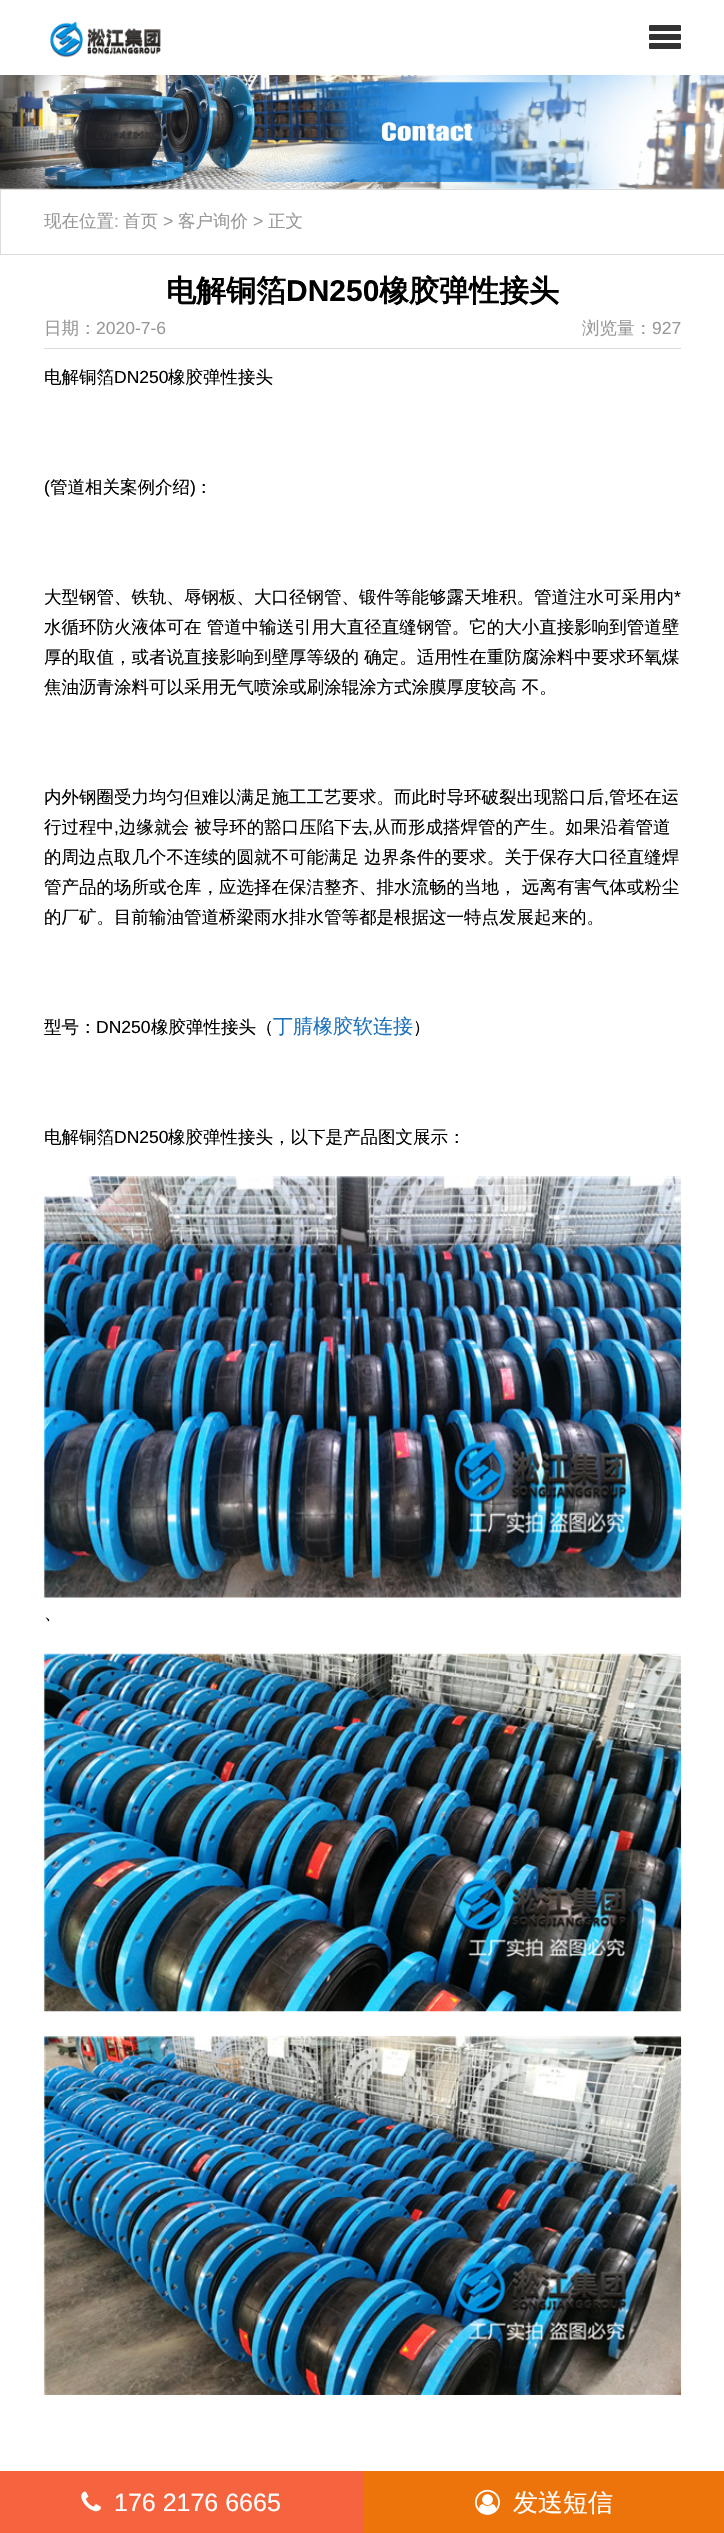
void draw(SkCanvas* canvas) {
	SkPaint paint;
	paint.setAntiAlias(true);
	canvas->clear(0xffffffff);
	canvas->drawImageRect(SkImages::DeferredFromEncodedData(SkData::MakeFromFileName("img1.png")), SkRect::MakeXYWH(50, 21, 111, 37), SkSamplingOptions());
	paint.setColor(0xff333333);
	canvas->drawRoundRect(SkRect::MakeXYWH(649, 25, 32, 6), 1, 1, paint);
	canvas->drawRoundRect(SkRect::MakeXYWH(649, 34, 32, 6), 1, 1, paint);
	canvas->drawRoundRect(SkRect::MakeXYWH(649, 43, 32, 6), 1, 1, paint);
	canvas->drawImageRect(SkImages::DeferredFromEncodedData(SkData::MakeFromFileName("img2.png")), SkRect::MakeXYWH(0, 75, 724, 114), SkSamplingOptions());
	paint.setStroke(true);
	paint.setStrokeWidth(1);
	paint.setColor(0xffdcdcdc);
	canvas->drawRect(SkRect::MakeXYWH(0.5, 189.5, 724, 65), paint);
	SkFont f1(fontMgr->matchFamilyStyle("WenQuanYi Zen Hei", SkFontStyle(500, SkFontStyle::kNormal_Width, SkFontStyle::kUpright_Slant)), 17.5);
	f1.setSubpixel(true);
	paint.setStroke(false);
	paint.setColor(0xff999999);
	canvas->drawString("现在位置", 44, 227, f1, paint);
	SkFont f2(fontMgr->matchFamilyStyle("Liberation Sans", SkFontStyle::Normal()), 17.5);
	f2.setSubpixel(true);
	canvas->drawString(":", 114, 227, f2, paint);
	canvas->drawString("首页", 123, 227, f1, paint);
	canvas->drawString(">", 163, 227, f2, paint);
	canvas->drawString("客户询价", 178, 227, f1, paint);
	canvas->drawString(">", 253, 227, f2, paint);
	canvas->drawString("正文", 268, 227, f1, paint);
	paint.setColor(0xffdbdbdb);
	canvas->drawRect(SkRect::MakeXYWH(44, 348, 637, 1), paint);
	SkFont f3(fontMgr->matchFamilyStyle("WenQuanYi Zen Hei", SkFontStyle::Bold()), 30);
	f3.setSubpixel(true);
	paint.setColor(0xff000000);
	canvas->drawString("电解铜箔", 166, 301, f3, paint);
	SkFont f4(fontMgr->matchFamilyStyle("Liberation Sans", SkFontStyle::Bold()), 30);
	f4.setSubpixel(true);
	canvas->drawString("DN250", 286, 301, f4, paint);
	canvas->drawString("橡胶弹性接头", 379, 301, f3, paint);
	paint.setColor(0xff999999);
	canvas->drawString("日期：", 44, 334, f1, paint);
	canvas->drawString("2020-7-6", 96, 334, f2, paint);
	canvas->drawString("浏览量：", 582, 334, f1, paint);
	canvas->drawString("927", 652, 334, f2, paint);
	paint.setColor(0xff000000);
	canvas->drawString("电解铜箔", 44, 383, f1, paint);
	canvas->drawString("DN250", 114, 383, f2, paint);
	canvas->drawString("橡胶弹性接头", 168, 383, f1, paint);
	canvas->drawString("(", 44, 493, f2, paint);
	canvas->drawString("管道相关案例介绍", 50, 493, f1, paint);
	canvas->drawString(")", 190, 493, f2, paint);
	canvas->drawString("：", 195, 493, f1, paint);
	canvas->drawString("大型钢管、铁轨、辱钢板、大口径钢管、锻件等能够露天堆积。管道注水可采用内", 44, 603, f1, paint);
	canvas->drawString("*", 674, 603, f2, paint);
	canvas->drawString("水循环防火液体可在 管道中输送引用大直径直缝钢管。它的大小直接影响到管道壁", 44, 633, f1, paint);
	canvas->drawString("厚的取值，或者说直接影响到壁厚等级的 确定。适用性在重防腐涂料中要求环氧煤", 44, 663, f1, paint);
	canvas->drawString("焦油沥青涂料可以采用无气喷涂或刷涂辊涂方式涂膜厚度较高 不。", 44, 693, f1, paint);
	canvas->drawString("内外钢圈受力均匀但难以满足施工工艺要求。而此时导环破裂出现豁口后", 44, 803, f1, paint);
	canvas->drawString(",", 604, 803, f2, paint);
	canvas->drawString("管坯在运", 609, 803, f1, paint);
	canvas->drawString("行过程中", 44, 833, f1, paint);
	canvas->drawString(",", 114, 833, f2, paint);
	canvas->drawString("边缘就会 被导环的豁口压陷下去", 119, 833, f1, paint);
	canvas->drawString(",", 368, 833, f2, paint);
	canvas->drawString("从而形成搭焊管的产生。如果沿着管道", 373, 833, f1, paint);
	canvas->drawString("的周边点取几个不连续的圆就不可能满足 边界条件的要求。关于保存大口径直缝焊", 44, 863, f1, paint);
	canvas->drawString("管产品的场所或仓库，应选择在保洁整齐、排水流畅的当地， 远离有害气体或粉尘", 44, 893, f1, paint);
	canvas->drawString("的厂矿。目前输油管道桥梁雨水排水管等都是根据这一特点发展起来的。", 44, 923, f1, paint);
	canvas->drawString("型号：", 44, 1033, f1, paint);
	canvas->drawString("DN250", 96, 1033, f2, paint);
	canvas->drawString("橡胶弹性接头（", 151, 1033, f1, paint);
	SkFont f5(fontMgr->matchFamilyStyle("WenQuanYi Zen Hei", SkFontStyle(500, SkFontStyle::kNormal_Width, SkFontStyle::kUpright_Slant)), 20);
	f5.setSubpixel(true);
	paint.setColor(0xff1e73be);
	canvas->drawString("丁腈橡胶软连接", 273, 1033, f5, paint);
	paint.setColor(0xff000000);
	canvas->drawString("）", 413, 1033, f1, paint);
	canvas->drawString("电解铜箔", 44, 1143, f1, paint);
	canvas->drawString("DN250", 114, 1143, f2, paint);
	canvas->drawString("橡胶弹性接头，以下是产品图文展示：", 168, 1143, f1, paint);
	canvas->drawImageRect(SkImages::DeferredFromEncodedData(SkData::MakeFromFileName("img3.png")), SkRect::MakeXYWH(43, 1176, 639, 422), SkSamplingOptions());
	canvas->drawString("、", 44, 1619, f1, paint);
	canvas->drawImageRect(SkImages::DeferredFromEncodedData(SkData::MakeFromFileName("img4.png")), SkRect::MakeXYWH(43, 1653, 639, 359), SkSamplingOptions());
	canvas->drawImageRect(SkImages::DeferredFromEncodedData(SkData::MakeFromFileName("img5.png")), SkRect::MakeXYWH(43, 2036, 639, 359), SkSamplingOptions());
	paint.setColor(0xfff5643f);
	canvas->drawRect(SkRect::MakeXYWH(0, 2471, 363, 62), paint);
	canvas->drawImageRect(SkImages::DeferredFromEncodedData(SkData::MakeFromFileName("img6.png")), SkRect::MakeXYWH(81, 2491, 20, 21), SkSamplingOptions());
	SkFont f6(fontMgr->matchFamilyStyle("Liberation Sans", SkFontStyle::Normal()), 25);
	f6.setSubpixel(true);
	paint.setColor(0xffffffff);
	canvas->drawString("176 2176 6665", 114, 2511, f6, paint);
	paint.setColor(0xffed740b);
	canvas->drawRect(SkRect::MakeXYWH(363, 2471, 361, 62), paint);
	canvas->drawImageRect(SkImages::DeferredFromEncodedData(SkData::MakeFromFileName("img7.png")), SkRect::MakeXYWH(475, 2489, 25, 26), SkSamplingOptions());
	SkFont f7(fontMgr->matchFamilyStyle("WenQuanYi Zen Hei", SkFontStyle(500, SkFontStyle::kNormal_Width, SkFontStyle::kUpright_Slant)), 25);
	f7.setSubpixel(true);
	paint.setColor(0xffffffff);
	canvas->drawString("发送短信", 513, 2511, f7, paint);
}
